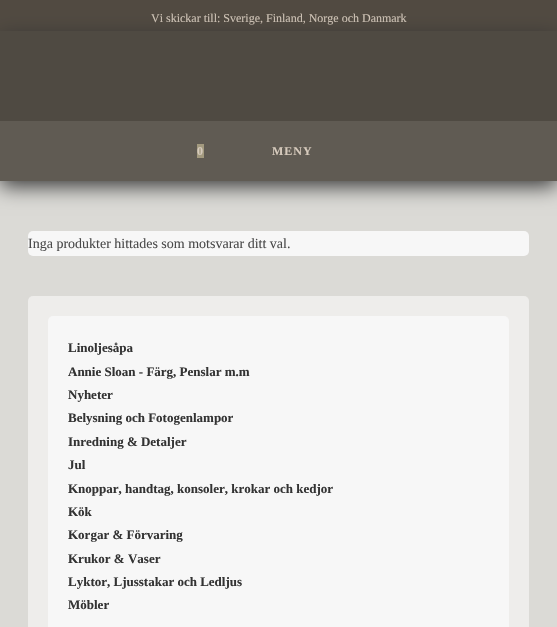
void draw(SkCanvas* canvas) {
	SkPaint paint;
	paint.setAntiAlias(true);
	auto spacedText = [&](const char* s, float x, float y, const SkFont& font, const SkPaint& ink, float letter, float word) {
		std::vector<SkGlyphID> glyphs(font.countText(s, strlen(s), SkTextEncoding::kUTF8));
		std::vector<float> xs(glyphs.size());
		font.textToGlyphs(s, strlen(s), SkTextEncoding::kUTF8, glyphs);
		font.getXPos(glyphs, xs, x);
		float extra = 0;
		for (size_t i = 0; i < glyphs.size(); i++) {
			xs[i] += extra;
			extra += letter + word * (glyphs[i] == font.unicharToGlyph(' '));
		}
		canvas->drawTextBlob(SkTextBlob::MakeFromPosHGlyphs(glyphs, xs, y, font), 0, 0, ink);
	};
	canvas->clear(0xffdbdad6);
	paint.setColor(0xff514a41);
	canvas->drawRect(SkRect::MakeXYWH(0, 0, 557, 31), paint);
	SkFont f1(fontMgr->matchFamilyStyle("Liberation Serif", SkFontStyle::Normal()), 12);
	f1.setSubpixel(true);
	paint.setColor(0xffd6cabc);
	canvas->drawString("Vi skickar till: Sverige, Finland, Norge och Danmark", 151, 22, f1, paint);
	paint.setColor(0xff333333);
	paint.setMaskFilter(SkMaskFilter::MakeBlur(kNormal_SkBlurStyle, 10));
	canvas->drawRect(SkRect::MakeXYWH(0, 36, 557, 150), paint);
	paint.setMaskFilter(nullptr);
	paint.setColor(0xff4f4a42);
	canvas->drawRect(SkRect::MakeXYWH(0, 31, 557, 90), paint);
	paint.setColor(0xff605b53);
	canvas->drawRect(SkRect::MakeXYWH(0, 121, 557, 60), paint);
	paint.setColor(0xffa39a7f);
	canvas->drawRect(SkRect::MakeXYWH(197, 144, 7, 14), paint);
	SkFont f2(fontMgr->matchFamilyStyle("Liberation Serif", SkFontStyle::Bold()), 12);
	f2.setSubpixel(true);
	paint.setColor(0xffd6cabc);
	spacedText("0", 197, 155, f2, paint, 1, 0);
	spacedText("MENY", 272, 155, f2, paint, 1, 0);
	paint.setColor(0xfff7f7f7);
	canvas->drawRoundRect(SkRect::MakeXYWH(28, 231, 501, 25), 5, 5, paint);
	SkFont f3(fontMgr->matchFamilyStyle("Liberation Serif", SkFontStyle::Normal()), 14);
	f3.setSubpixel(true);
	paint.setColor(0xff4a4a4a);
	canvas->drawString("Inga produkter hittades som motsvarar ditt val.", 28, 248, f3, paint);
	paint.setColor(0xffeeedeb);
	canvas->drawRoundRect(SkRect::MakeXYWH(28, 296, 501, 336), 5, 5, paint);
	paint.setColor(0xfff7f7f7);
	canvas->drawRoundRect(SkRect::MakeXYWH(48, 316, 461, 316), 5, 5, paint);
	SkFont f4(fontMgr->matchFamilyStyle("Liberation Serif", SkFontStyle::Bold()), 13);
	f4.setSubpixel(true);
	paint.setColor(0xff333333);
	canvas->drawString("Linoljesåpa", 68, 352, f4, paint);
	canvas->drawString("Annie Sloan - Färg, Penslar m.m", 68, 376, f4, paint);
	canvas->drawString("Nyheter", 68, 399, f4, paint);
	canvas->drawString("Belysning och Fotogenlampor", 68, 422, f4, paint);
	canvas->drawString("Inredning & Detaljer", 68, 446, f4, paint);
	canvas->drawString("Jul", 68, 469, f4, paint);
	canvas->drawString("Knoppar, handtag, konsoler, krokar och kedjor", 68, 493, f4, paint);
	canvas->drawString("Kök", 68, 516, f4, paint);
	canvas->drawString("Korgar & Förvaring", 68, 539, f4, paint);
	canvas->drawString("Krukor & Vaser", 68, 563, f4, paint);
	canvas->drawString("Lyktor, Ljusstakar och Ledljus", 68, 586, f4, paint);
	canvas->drawString("Möbler", 68, 609, f4, paint);
}
